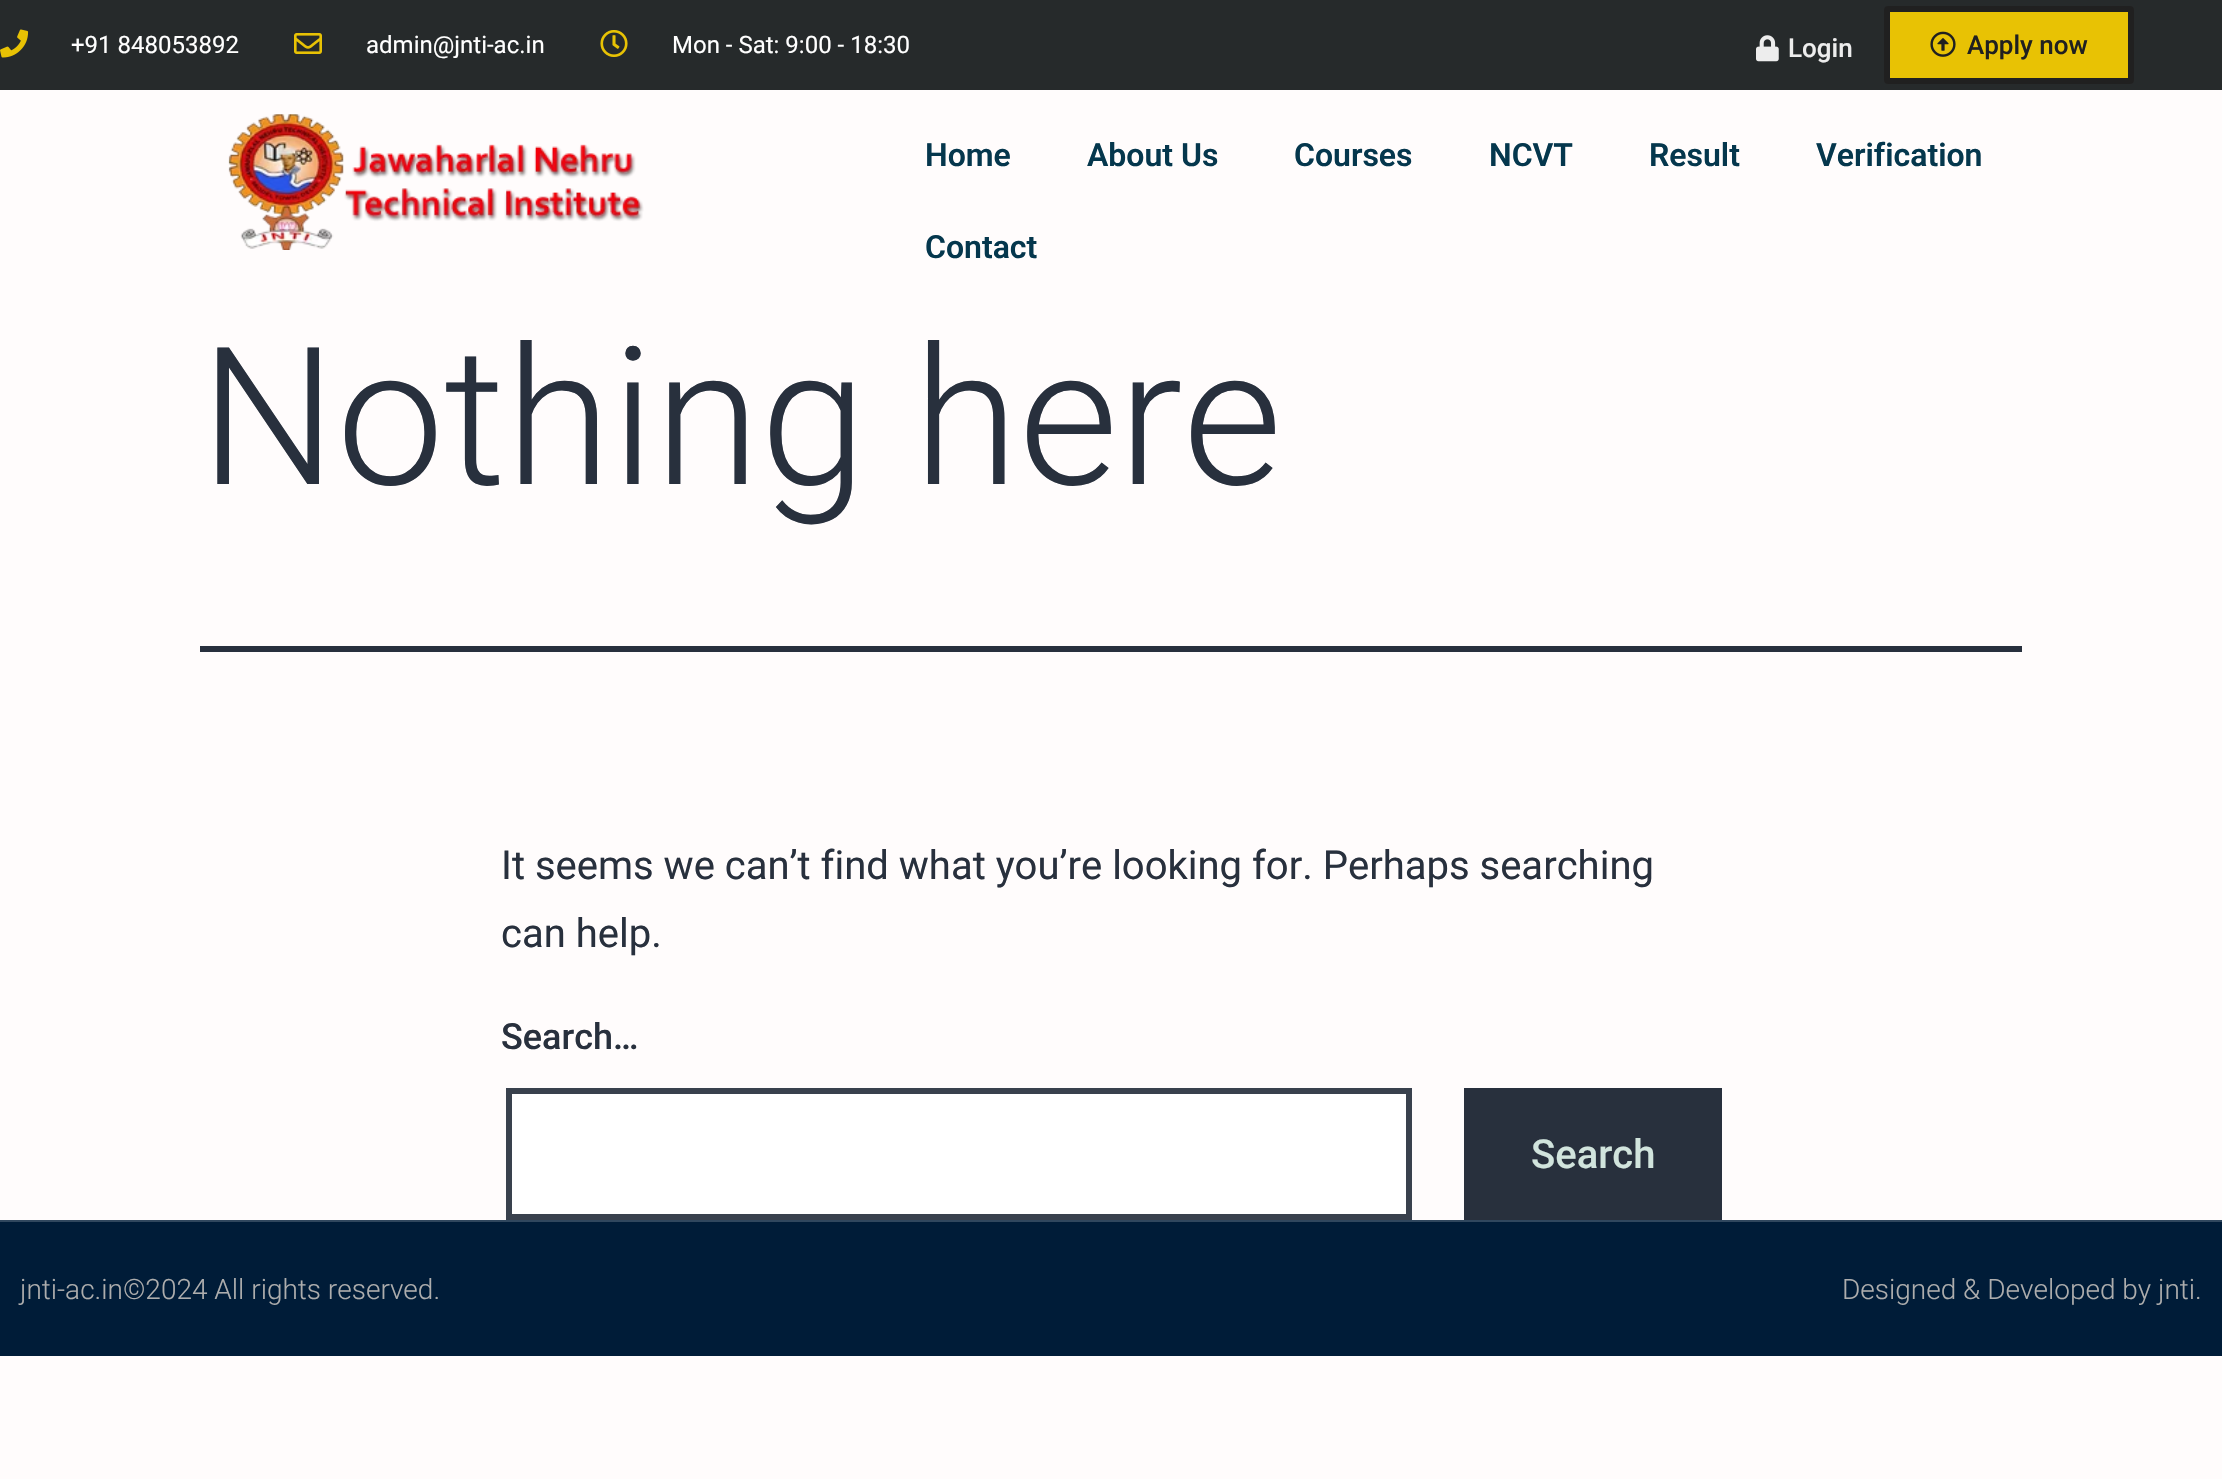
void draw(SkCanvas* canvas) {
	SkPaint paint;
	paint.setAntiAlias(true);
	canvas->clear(0xfffffcfc);
	paint.setColor(0xff262a2b);
	canvas->drawRect(SkRect::MakeXYWH(0, 0, 2222, 90), paint);
	canvas->drawImageRect(SkImages::DeferredFromEncodedData(SkData::MakeFromFileName("img1.png")), SkRect::MakeXYWH(0, 29, 29, 29), SkSamplingOptions());
	SkFont f1(fontMgr->matchFamilyStyle("Roboto", SkFontStyle::Normal()), 24);
	f1.setSubpixel(true);
	paint.setColor(0xffffffff);
	canvas->drawString("+91 848053892", 71, 53, f1, paint);
	canvas->drawImageRect(SkImages::DeferredFromEncodedData(SkData::MakeFromFileName("img2.png")), SkRect::MakeXYWH(294, 33, 28, 21), SkSamplingOptions());
	canvas->drawString("admin@jnti-ac.in", 366, 53, f1, paint);
	canvas->drawImageRect(SkImages::DeferredFromEncodedData(SkData::MakeFromFileName("img3.png")), SkRect::MakeXYWH(600, 30, 28, 27), SkSamplingOptions());
	canvas->drawString("Mon - Sat: 9:00 - 18:30", 672, 53, f1, paint);
	canvas->drawImageRect(SkImages::DeferredFromEncodedData(SkData::MakeFromFileName("img4.png")), SkRect::MakeXYWH(1756, 35, 23, 27), SkSamplingOptions());
	SkFont f2(fontMgr->matchFamilyStyle("Roboto", SkFontStyle(500, SkFontStyle::kNormal_Width, SkFontStyle::kUpright_Slant)), 26);
	f2.setSubpixel(true);
	paint.setColor(0xffededed);
	canvas->drawString("Login", 1788, 57, f2, paint);
	paint.setColor(0xffe8c204);
	canvas->drawRoundRect(SkRect::MakeXYWH(1887, 9, 244, 72), 1, 1, paint);
	paint.setStroke(true);
	paint.setStrokeWidth(6);
	paint.setColor(0xff202020);
	canvas->drawRoundRect(SkRect::MakeXYWH(1887, 9, 244, 72), 1, 1, paint);
	canvas->drawImageRect(SkImages::DeferredFromEncodedData(SkData::MakeFromFileName("img5.png")), SkRect::MakeXYWH(1930, 31, 26, 26), SkSamplingOptions());
	paint.setStroke(false);
	canvas->drawString("Apply now", 1967, 54, f2, paint);
	canvas->drawImageRect(SkImages::DeferredFromEncodedData(SkData::MakeFromFileName("img6.png")), SkRect::MakeXYWH(228, 114, 416, 136), SkSamplingOptions());
	SkFont f3(fontMgr->matchFamilyStyle("Roboto", SkFontStyle(600, SkFontStyle::kNormal_Width, SkFontStyle::kUpright_Slant)), 32);
	f3.setSubpixel(true);
	paint.setColor(0xff05374d);
	canvas->drawString("Home", 925, 166, f3, paint);
	canvas->drawString("About Us", 1087, 166, f3, paint);
	canvas->drawString("Courses", 1294, 166, f3, paint);
	canvas->drawString("NCVT", 1489, 166, f3, paint);
	canvas->drawString("Result", 1649, 166, f3, paint);
	canvas->drawString("Verification", 1816, 166, f3, paint);
	canvas->drawString("Contact", 925, 258, f3, paint);
	paint.setColor(0xff28303d);
	canvas->drawRect(SkRect::MakeXYWH(200, 646, 1822, 6), paint);
	SkFont f4(fontMgr->matchFamilyStyle("Roboto", SkFontStyle(300, SkFontStyle::kNormal_Width, SkFontStyle::kUpright_Slant)), 192);
	f4.setSubpixel(true);
	canvas->drawString("Nothing here", 200, 484, f4, paint);
	SkFont f5(fontMgr->matchFamilyStyle("Roboto", SkFontStyle::Normal()), 40);
	f5.setSubpixel(true);
	canvas->drawString("It seems we can’t find what you’re looking for. Perhaps searching", 501, 879, f5, paint);
	canvas->drawString("can help.", 501, 947, f5, paint);
	SkFont f6(fontMgr->matchFamilyStyle("Roboto", SkFontStyle(500, SkFontStyle::kNormal_Width, SkFontStyle::kUpright_Slant)), 36);
	f6.setSubpixel(true);
	canvas->drawString("Search…", 501, 1049, f6, paint);
	paint.setColor(0xffffffff);
	canvas->drawRect(SkRect::MakeXYWH(509, 1091, 900, 126), paint);
	paint.setStroke(true);
	paint.setColor(0xff39414d);
	canvas->drawRect(SkRect::MakeXYWH(509, 1091, 900, 126), paint);
	paint.setStroke(false);
	paint.setColor(0xff28303d);
	canvas->drawRect(SkRect::MakeXYWH(1464, 1088, 258, 132), paint);
	SkFont f7(fontMgr->matchFamilyStyle("Roboto", SkFontStyle(500, SkFontStyle::kNormal_Width, SkFontStyle::kUpright_Slant)), 40);
	f7.setSubpixel(true);
	paint.setColor(0xffd1e4dd);
	canvas->drawString("Search", 1531, 1168, f7, paint);
	paint.setColor(0xff001c38);
	canvas->drawRect(SkRect::MakeXYWH(0, 1222, 2222, 134), paint);
	paint.setColor(0xff30475e);
	canvas->drawRect(SkRect::MakeXYWH(0, 1220, 2222, 2), paint);
	SkFont f8(fontMgr->matchFamilyStyle("Roboto", SkFontStyle(300, SkFontStyle::kNormal_Width, SkFontStyle::kUpright_Slant)), 28);
	f8.setSubpixel(true);
	paint.setColor(0xffadadad);
	canvas->drawString("jnti-ac.in©2024 All rights reserved.", 20, 1299, f8, paint);
	canvas->drawString("Designed & Developed by jnti.", 1842, 1299, f8, paint);
}
